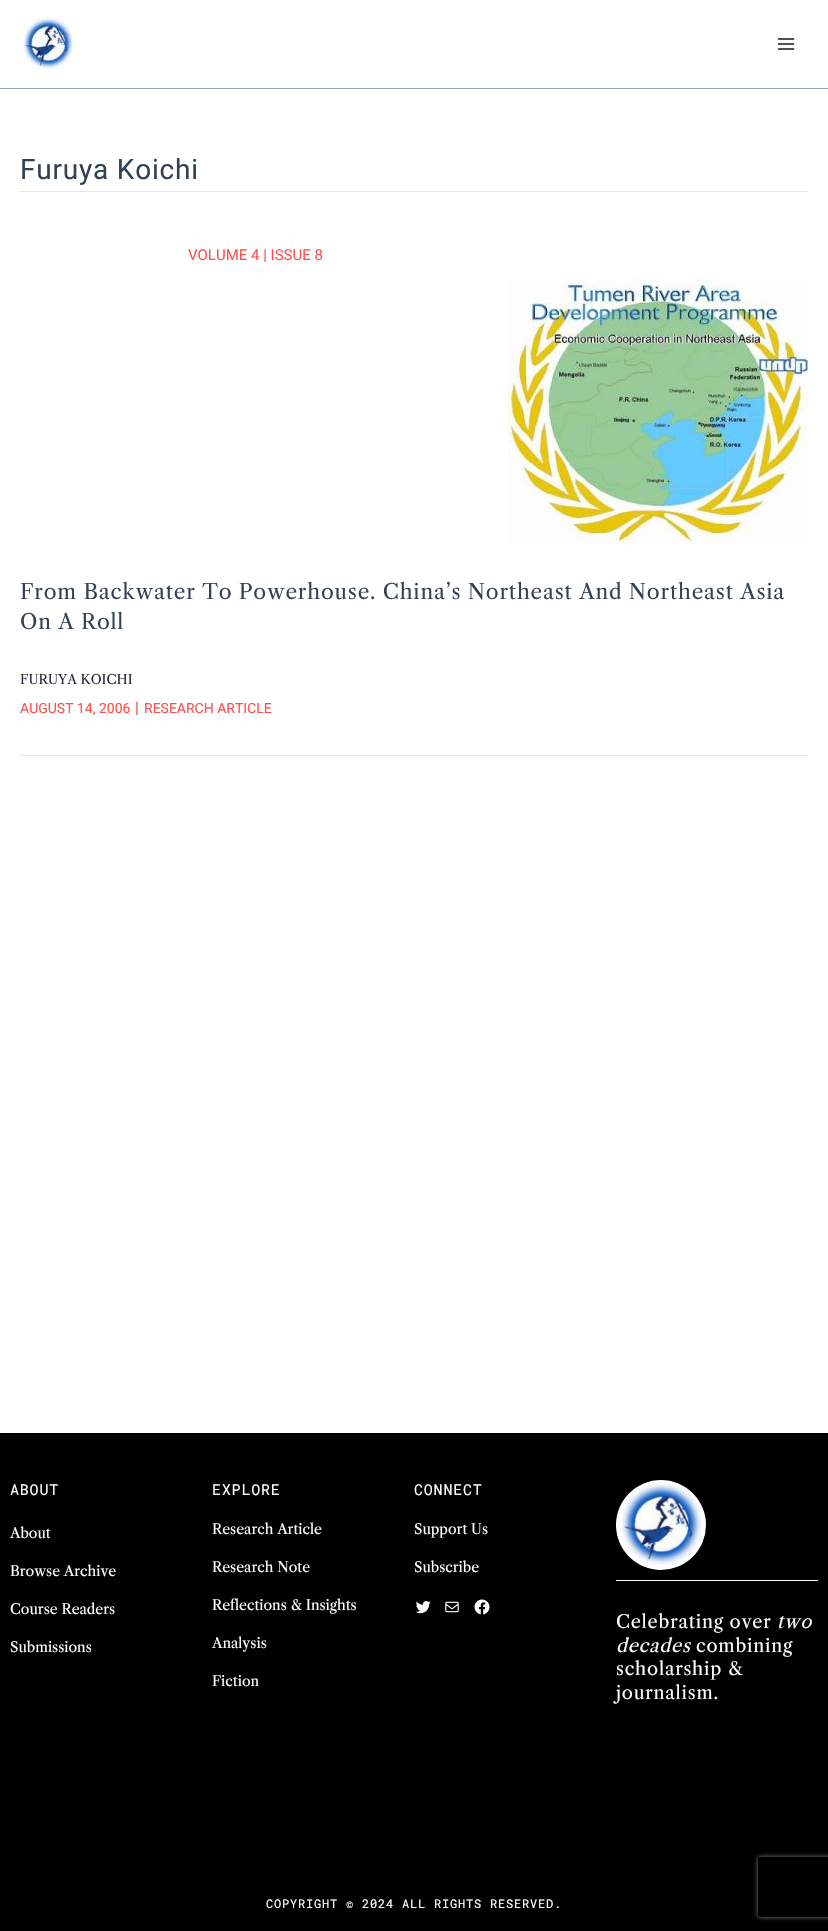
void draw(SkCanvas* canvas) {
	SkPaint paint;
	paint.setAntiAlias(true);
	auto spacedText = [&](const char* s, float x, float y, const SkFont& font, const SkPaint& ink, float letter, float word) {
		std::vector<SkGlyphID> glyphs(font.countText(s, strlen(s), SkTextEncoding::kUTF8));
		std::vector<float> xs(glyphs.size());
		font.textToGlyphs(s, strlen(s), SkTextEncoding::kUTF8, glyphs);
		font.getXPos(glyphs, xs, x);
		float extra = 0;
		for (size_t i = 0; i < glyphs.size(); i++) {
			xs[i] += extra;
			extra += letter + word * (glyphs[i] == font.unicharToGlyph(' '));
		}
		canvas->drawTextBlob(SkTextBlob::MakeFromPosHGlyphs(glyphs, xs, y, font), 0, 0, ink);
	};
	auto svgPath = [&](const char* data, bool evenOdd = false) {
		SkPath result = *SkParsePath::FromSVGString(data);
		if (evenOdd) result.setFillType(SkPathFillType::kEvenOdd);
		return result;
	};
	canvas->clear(0xffffffff);
	paint.setColor(0xff94a3b8);
	canvas->drawRect(SkRect::MakeXYWH(0, 88, 828, 1), paint);
	canvas->drawImageRect(SkImages::DeferredFromEncodedData(SkData::MakeFromFileName("img1.png")), SkRect::MakeXYWH(20, 16, 56, 56), SkSamplingOptions());
	canvas->drawImageRect(SkImages::DeferredFromEncodedData(SkData::MakeFromFileName("img2.png")), SkRect::MakeXYWH(777, 38, 18, 12), SkSamplingOptions());
	paint.setColor(0xffe2e8f0);
	canvas->drawRect(SkRect::MakeXYWH(20, 191, 788, 1), paint);
	SkFont f1(fontMgr->matchFamilyStyle("Roboto", SkFontStyle::Normal()), 28);
	f1.setSubpixel(true);
	paint.setColor(0xff334155);
	spacedText("Furuya Koichi", 20, 179, f1, paint, 0.8, 0);
	SkFont f2(fontMgr->matchFamilyStyle("Roboto", SkFontStyle::Normal()), 15);
	f2.setSubpixel(true);
	paint.setColor(0xfffc514e);
	canvas->drawString("VOLUME 4 | ISSUE 8", 188, 260, f2, paint);
	paint.setColor(0xffe2e8f0);
	canvas->drawRect(SkRect::MakeXYWH(20, 755, 788, 1), paint);
	canvas->drawImageRect(SkImages::DeferredFromEncodedData(SkData::MakeFromFileName("img3.png")), SkRect::MakeXYWH(508, 279, 300, 266), SkSamplingOptions());
	SkFont f3(fontMgr->matchFamilyStyle("Libre Caslon Text", SkFontStyle::Normal()), 20.8);
	f3.setSubpixel(true);
	paint.setColor(0xff334155);
	spacedText("From Backwater To Powerhouse. China’s Northeast And Northeast Asia", 20, 599, f3, paint, 0.8, 0);
	spacedText("On A Roll", 20, 629, f3, paint, 0.8, 0);
	SkFont f4(fontMgr->matchFamilyStyle("Libre Caslon Text", SkFontStyle::Normal()), 13);
	f4.setSubpixel(true);
	paint.setColor(0xff1e293b);
	canvas->drawString("FURUYA KOICHI", 20, 684, f4, paint);
	SkFont f5(fontMgr->matchFamilyStyle("Roboto", SkFontStyle::Normal()), 14);
	f5.setSubpixel(true);
	paint.setColor(0xfffc514e);
	canvas->drawString("AUGUST 14, 2006", 20, 713, f5, paint);
	SkFont f6(fontMgr->matchFamilyStyle("Roboto", SkFontStyle::Normal()), 16);
	f6.setSubpixel(true);
	canvas->drawString("|", 135, 713, f6, paint);
	canvas->drawString("RESEARCH ARTICLE", 144, 713, f5, paint);
	paint.setColor(0xff000000);
	canvas->drawRect(SkRect::MakeXYWH(0, 1433, 828, 498), paint);
	SkFont f7(fontMgr->matchFamilyStyle("Roboto Mono", SkFontStyle::Normal()), 15);
	f7.setSubpixel(true);
	paint.setColor(0xffffffff);
	spacedText("ABOUT", 10, 1495, f7, paint, 0.8, 0);
	SkFont f8(fontMgr->matchFamilyStyle("Libre Caslon Text", SkFontStyle::Normal()), 14);
	f8.setSubpixel(true);
	canvas->drawString("About", 10, 1538, f8, paint);
	canvas->drawString("Browse Archive", 10, 1576, f8, paint);
	canvas->drawString("Course Readers", 10, 1614, f8, paint);
	canvas->drawString("Submissions", 10, 1652, f8, paint);
	spacedText("EXPLORE", 212, 1495, f7, paint, 0.8, 0);
	canvas->drawString("Research Article", 212, 1534, f8, paint);
	canvas->drawString("Research Note", 212, 1572, f8, paint);
	canvas->drawString("Reflections & Insights", 212, 1610, f8, paint);
	canvas->drawString("Analysis", 212, 1648, f8, paint);
	canvas->drawString("Fiction", 212, 1686, f8, paint);
	spacedText("CONNECT", 414, 1495, f7, paint, 0.8, 0);
	canvas->drawString("Support Us", 414, 1534, f8, paint);
	canvas->drawString("Subscribe", 414, 1572, f8, paint);
	canvas->drawImageRect(SkImages::DeferredFromEncodedData(SkData::MakeFromFileName("img4.png")), SkRect::MakeXYWH(415, 1601, 16, 13), SkSamplingOptions());
	canvas->drawImageRect(SkImages::DeferredFromEncodedData(SkData::MakeFromFileName("img5.png")), SkRect::MakeXYWH(445, 1601, 14, 12), SkSamplingOptions());
	canvas->drawImageRect(SkImages::DeferredFromEncodedData(SkData::MakeFromFileName("img6.png")), SkRect::MakeXYWH(474, 1599, 16, 16), SkSamplingOptions());
	canvas->drawImageRect(SkImages::DeferredFromEncodedData(SkData::MakeFromFileName("img7.png")), SkRect::MakeXYWH(616, 1480, 90, 90), SkSamplingOptions());
	canvas->drawRect(SkRect::MakeXYWH(616, 1580, 202, 1), paint);
	SkFont f9(fontMgr->matchFamilyStyle("Libre Caslon Text", SkFontStyle::Normal()), 18);
	f9.setSubpixel(true);
	spacedText("Celebrating over", 616, 1628, f9, paint, 0.8, 0);
	SkFont f10(fontMgr->matchFamilyStyle("Libre Caslon Text", SkFontStyle::Italic()), 18);
	f10.setSubpixel(true);
	spacedText("two", 777, 1628, f10, paint, 0.8, 0);
	spacedText("decades", 616, 1652, f10, paint, 0.8, 0);
	spacedText("combining", 696, 1652, f9, paint, 0.8, 0);
	spacedText("scholarship &", 616, 1675, f9, paint, 0.8, 0);
	spacedText("journalism.", 616, 1699, f9, paint, 0.8, 0);
	SkFont f11(fontMgr->matchFamilyStyle("Roboto Mono", SkFontStyle::Normal()), 12);
	f11.setSubpixel(true);
	spacedText("COPYRIGHT © 2024 ALL RIGHTS RESERVED.", 266, 1908, f11, paint, 0.8, 0);
	canvas->save();
	canvas->clipPath(svgPath("M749 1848H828V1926H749ZM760 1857H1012C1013 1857 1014 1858 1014 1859V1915C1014 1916 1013 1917 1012 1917H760C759 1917 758 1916 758 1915V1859C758 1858 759 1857 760 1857Z", true), true);
	paint.setColor(0xff808080);
	paint.setMaskFilter(SkMaskFilter::MakeBlur(kNormal_SkBlurStyle, 2.5));
	canvas->drawRoundRect(SkRect::MakeXYWH(758, 1857, 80, 60), 2, 2, paint);
	paint.setMaskFilter(nullptr);
	canvas->restore();
}
